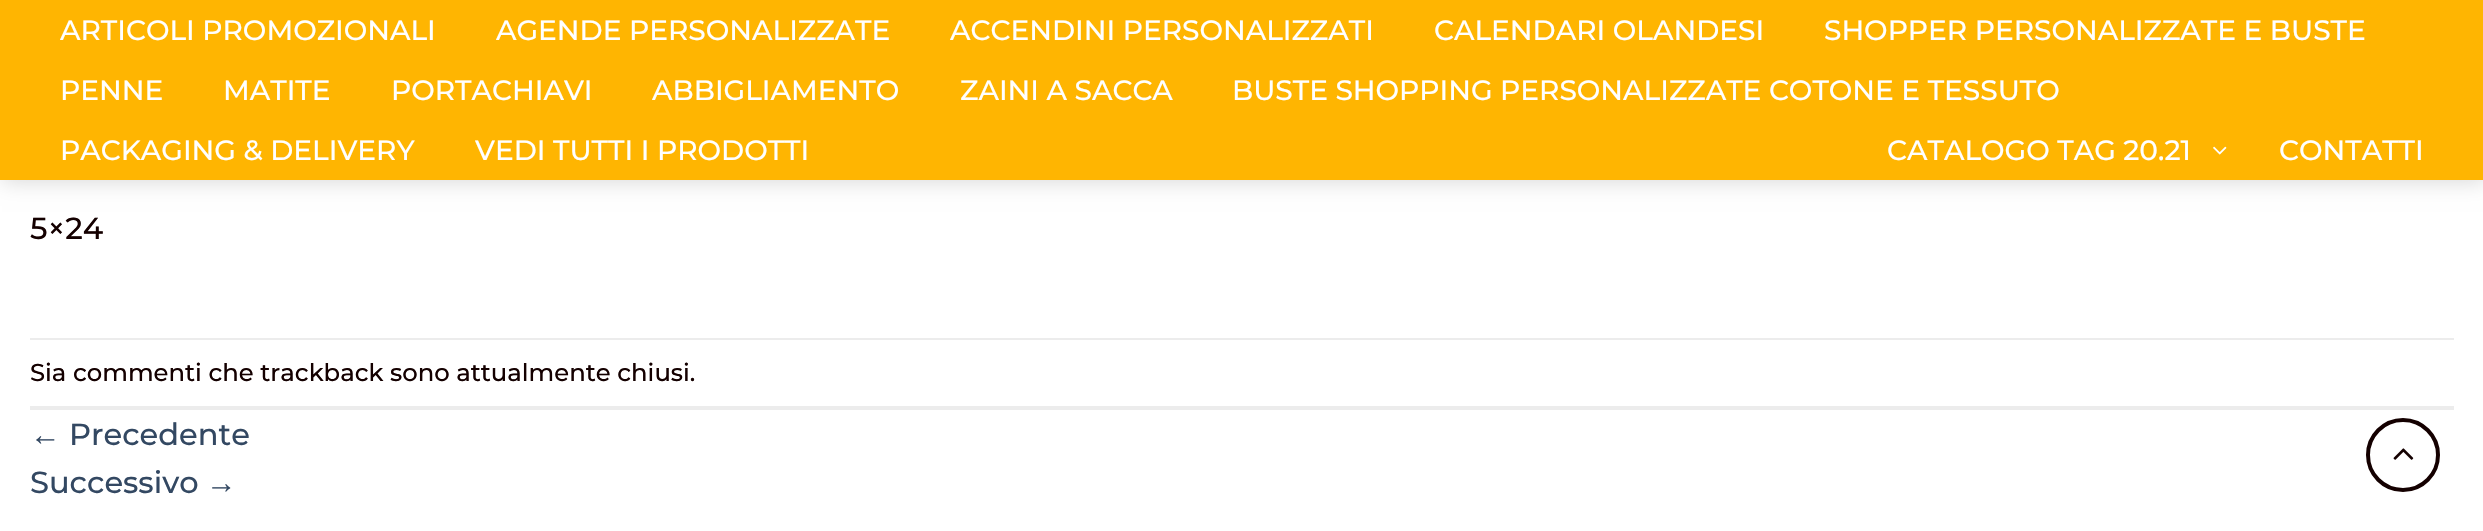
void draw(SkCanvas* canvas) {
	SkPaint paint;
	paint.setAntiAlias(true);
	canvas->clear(0xffffffff);
	paint.setColor(0x26000000);
	paint.setMaskFilter(SkMaskFilter::MakeBlur(kNormal_SkBlurStyle, 10));
	canvas->drawRect(SkRect::MakeXYWH(2, 2, 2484, 180), paint);
	paint.setMaskFilter(nullptr);
	paint.setColor(0xffffb501);
	canvas->drawRect(SkRect::MakeXYWH(0, 0, 2483, 180), paint);
	SkFont f1(fontMgr->matchFamilyStyle("Montserrat", SkFontStyle(500, SkFontStyle::kNormal_Width, SkFontStyle::kUpright_Slant)), 28);
	f1.setSubpixel(true);
	paint.setColor(0xffffffff);
	canvas->drawString("ARTICOLI PROMOZIONALI", 60, 40, f1, paint);
	canvas->drawString("AGENDE PERSONALIZZATE", 496, 40, f1, paint);
	canvas->drawString("ACCENDINI PERSONALIZZATI", 950, 40, f1, paint);
	canvas->drawString("CALENDARI OLANDESI", 1434, 40, f1, paint);
	canvas->drawString("SHOPPER PERSONALIZZATE E BUSTE", 1824, 40, f1, paint);
	canvas->drawString("PENNE", 60, 100, f1, paint);
	canvas->drawString("MATITE", 223, 100, f1, paint);
	canvas->drawString("PORTACHIAVI", 391, 100, f1, paint);
	canvas->drawString("ABBIGLIAMENTO", 652, 100, f1, paint);
	canvas->drawString("ZAINI A SACCA", 960, 100, f1, paint);
	canvas->drawString("BUSTE SHOPPING PERSONALIZZATE COTONE E TESSUTO", 1232, 100, f1, paint);
	canvas->drawString("PACKAGING & DELIVERY", 60, 160, f1, paint);
	canvas->drawString("VEDI TUTTI I PRODOTTI", 475, 160, f1, paint);
	canvas->drawString("CATALOGO TAG 20.21", 1887, 160, f1, paint);
	canvas->drawImageRect(SkImages::DeferredFromEncodedData(SkData::MakeFromFileName("img1.png")), SkRect::MakeXYWH(2213, 146, 14, 9), SkSamplingOptions());
	canvas->drawString("CONTATTI", 2279, 160, f1, paint);
	SkFont f2(fontMgr->matchFamilyStyle("Montserrat", SkFontStyle(500, SkFontStyle::kNormal_Width, SkFontStyle::kUpright_Slant)), 30.5);
	f2.setSubpixel(true);
	paint.setColor(0xff140000);
	canvas->drawString("5×24", 30, 239, f2, paint);
	paint.setColor(0xffececec);
	canvas->drawRect(SkRect::MakeXYWH(30, 338, 2424, 2), paint);
	canvas->drawRect(SkRect::MakeXYWH(30, 406, 2424, 4), paint);
	SkFont f3(fontMgr->matchFamilyStyle("Montserrat", SkFontStyle(500, SkFontStyle::kNormal_Width, SkFontStyle::kUpright_Slant)), 24.3);
	f3.setSubpixel(true);
	paint.setColor(0xff140000);
	canvas->drawString("Sia commenti che trackback sono attualmente chiusi.", 30, 381, f3, paint);
	SkFont f4(fontMgr->matchFamilyStyle("Liberation Sans", SkFontStyle::Normal()), 30.5);
	f4.setSubpixel(true);
	paint.setColor(0xff334862);
	canvas->drawString("←", 30, 445, f4, paint);
	canvas->drawString("Precedente", 69, 445, f2, paint);
	canvas->drawString("Successivo", 30, 493, f2, paint);
	canvas->drawString("→", 206, 493, f4, paint);
	paint.setStroke(true);
	paint.setStrokeWidth(4);
	paint.setColor(0xff140000);
	canvas->drawCircle(2403, 455, 35, paint);
	canvas->drawImageRect(SkImages::DeferredFromEncodedData(SkData::MakeFromFileName("img2.png")), SkRect::MakeXYWH(2393, 448, 21, 12), SkSamplingOptions());
}
